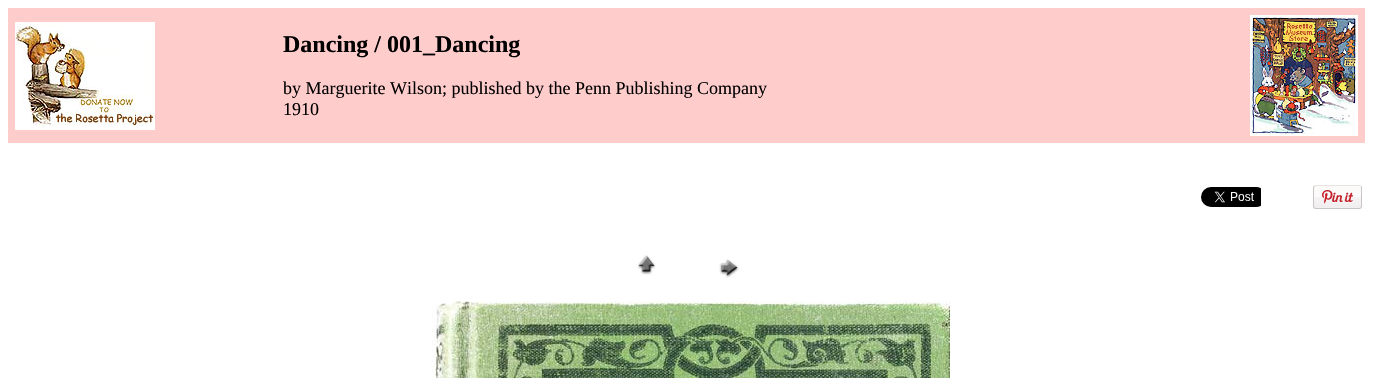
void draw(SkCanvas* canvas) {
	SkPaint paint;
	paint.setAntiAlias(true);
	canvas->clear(0xffffffff);
	paint.setColor(0xffffcccc);
	canvas->drawRect(SkRect::MakeXYWH(8, 8, 1357, 135), paint);
	canvas->drawImageRect(SkImages::DeferredFromEncodedData(SkData::MakeFromFileName("img1.png")), SkRect::MakeXYWH(15, 22, 140, 108), SkSamplingOptions());
	SkFont f1(fontMgr->matchFamilyStyle("Liberation Serif", SkFontStyle::Bold()), 24);
	f1.setSubpixel(true);
	paint.setColor(0xff000000);
	canvas->drawString("Dancing / 001_Dancing", 283, 52, f1, paint);
	SkFont f2(fontMgr->matchFamilyStyle("Liberation Serif", SkFontStyle::Normal()), 18);
	f2.setSubpixel(true);
	canvas->drawString("by Marguerite Wilson; published by the Penn Publishing Company", 283, 94, f2, paint);
	canvas->drawString("1910", 283, 115, f2, paint);
	canvas->drawImageRect(SkImages::DeferredFromEncodedData(SkData::MakeFromFileName("img2.png")), SkRect::MakeXYWH(1250, 15, 108, 121), SkSamplingOptions());
	canvas->drawImageRect(SkImages::DeferredFromEncodedData(SkData::MakeFromFileName("img3.png")), SkRect::MakeXYWH(1201, 187, 60, 20), SkSamplingOptions());
	canvas->drawImageRect(SkImages::DeferredFromEncodedData(SkData::MakeFromFileName("img4.png")), SkRect::MakeXYWH(1313, 185, 49, 24), SkSamplingOptions());
	canvas->drawImageRect(SkImages::DeferredFromEncodedData(SkData::MakeFromFileName("img5.png")), SkRect::MakeXYWH(637, 255, 19, 20), SkSamplingOptions());
	canvas->drawImageRect(SkImages::DeferredFromEncodedData(SkData::MakeFromFileName("img6.png")), SkRect::MakeXYWH(719, 259, 20, 19), SkSamplingOptions());
	canvas->drawImageRect(SkImages::DeferredFromEncodedData(SkData::MakeFromFileName("img7.png")), SkRect::MakeXYWH(431, 301, 519, 77), SkSamplingOptions());
}
